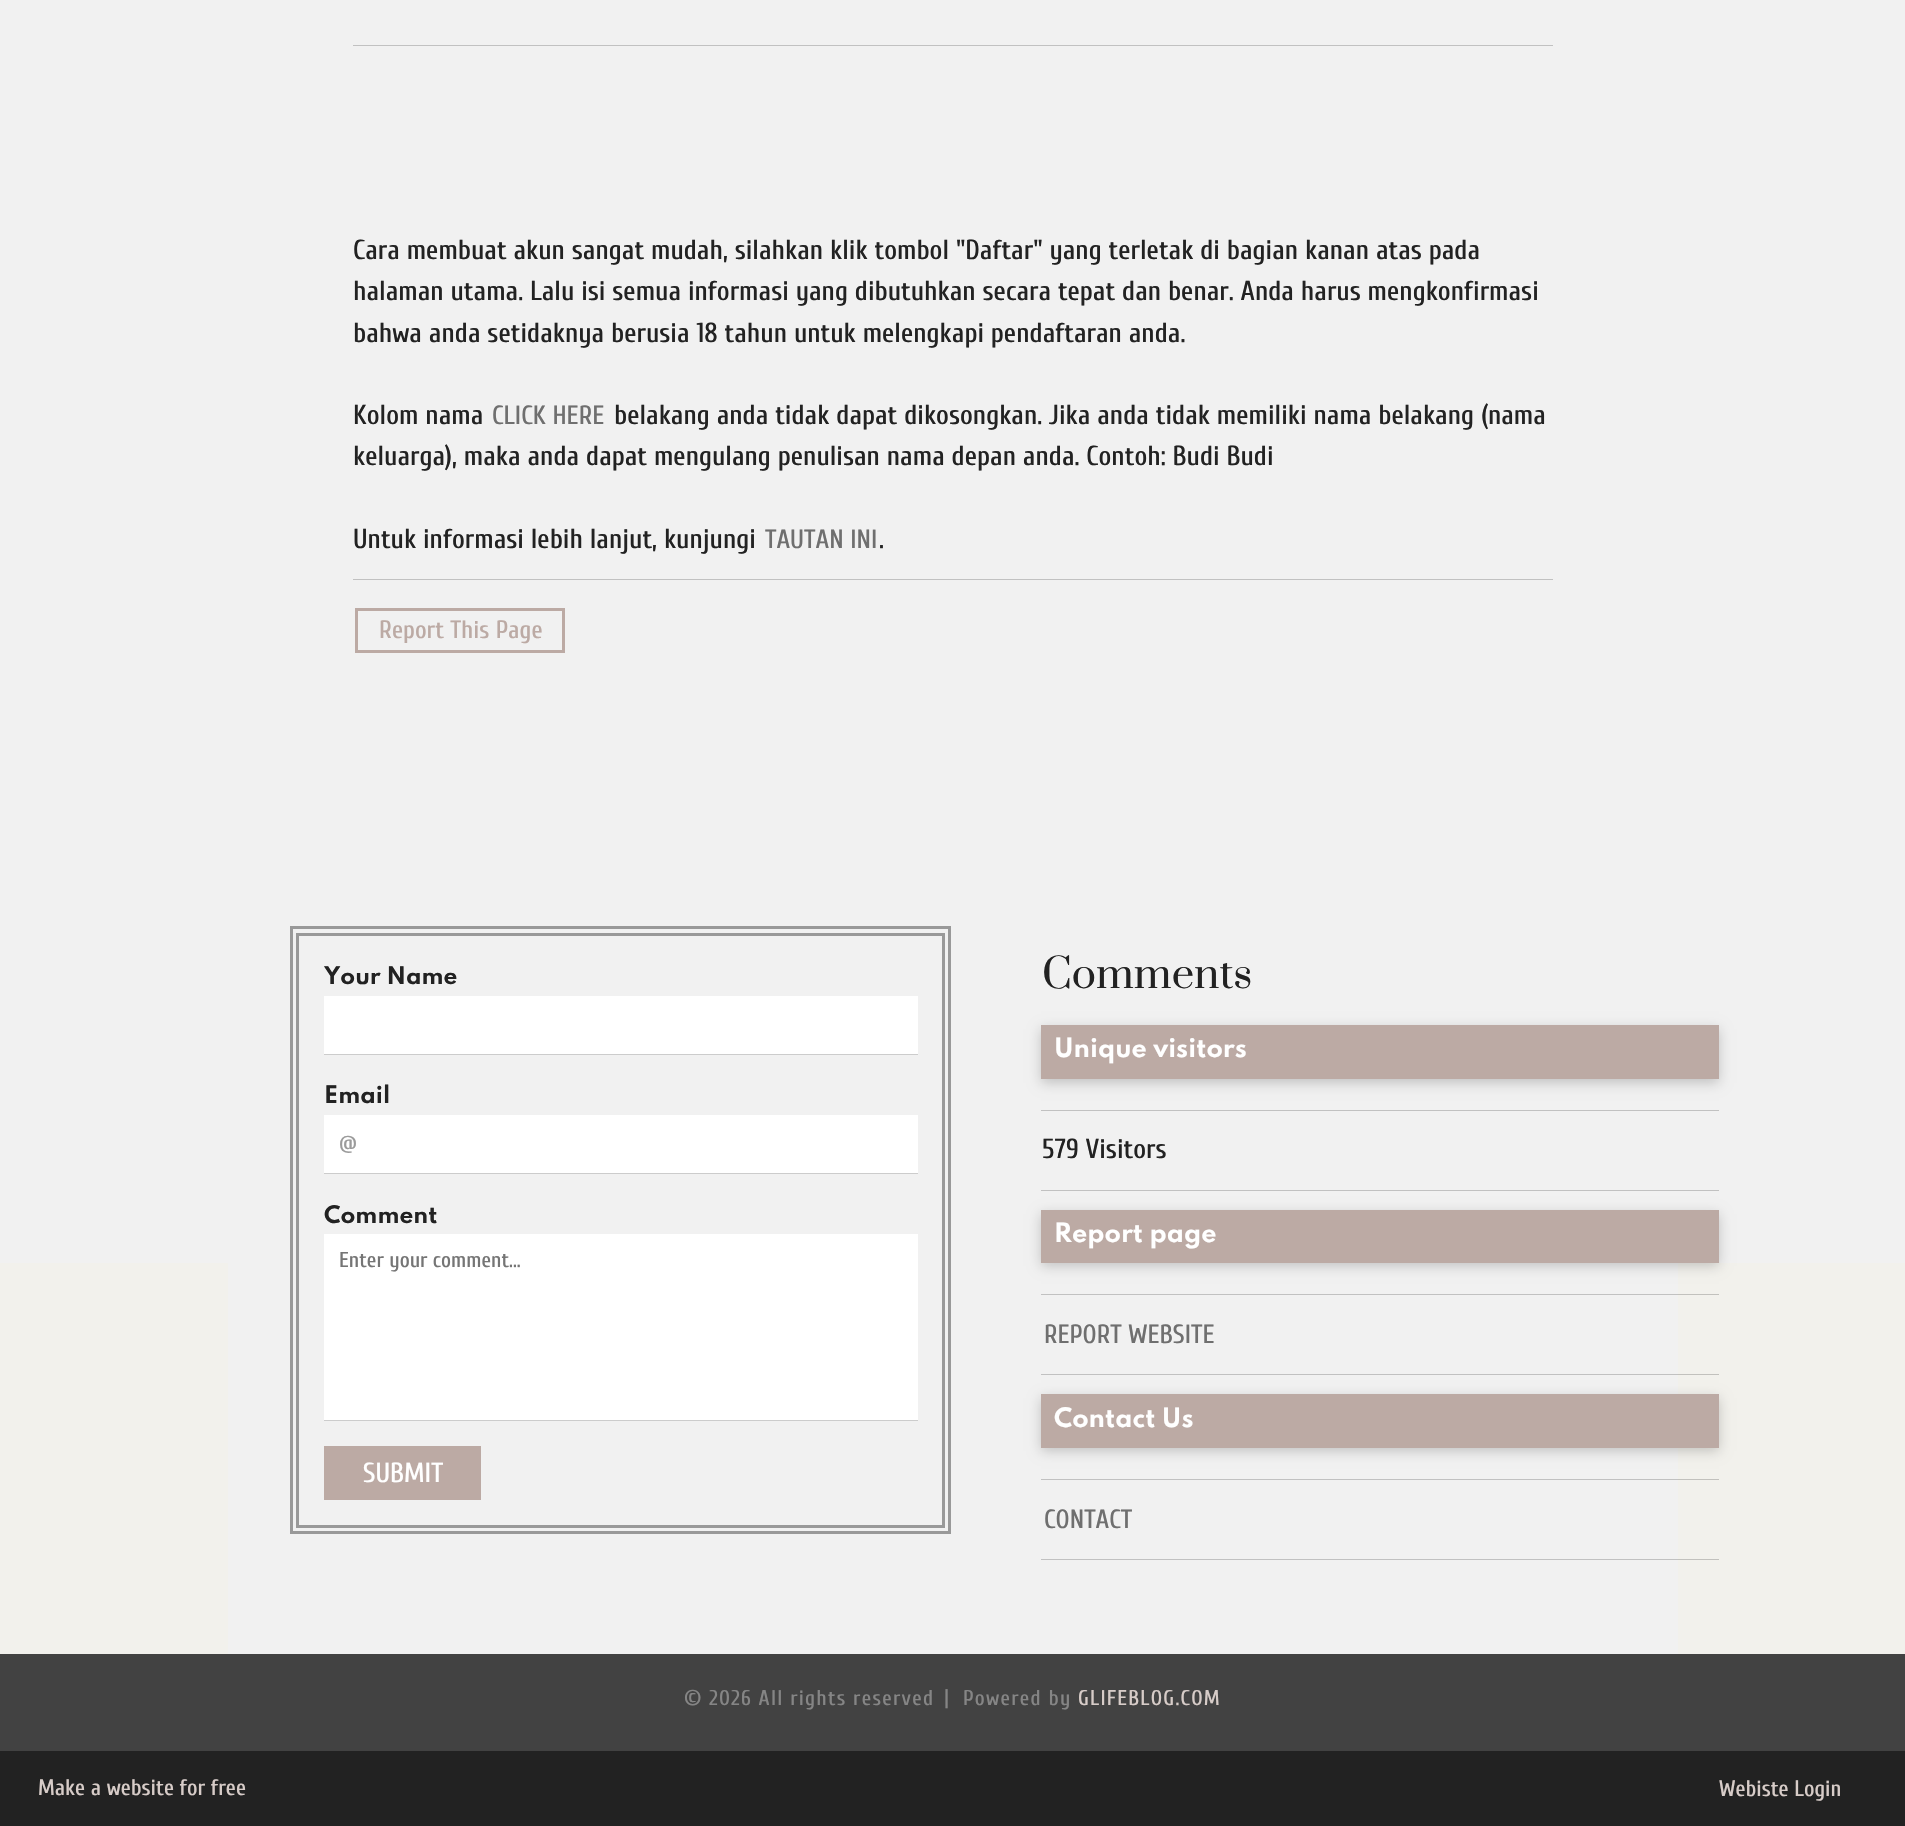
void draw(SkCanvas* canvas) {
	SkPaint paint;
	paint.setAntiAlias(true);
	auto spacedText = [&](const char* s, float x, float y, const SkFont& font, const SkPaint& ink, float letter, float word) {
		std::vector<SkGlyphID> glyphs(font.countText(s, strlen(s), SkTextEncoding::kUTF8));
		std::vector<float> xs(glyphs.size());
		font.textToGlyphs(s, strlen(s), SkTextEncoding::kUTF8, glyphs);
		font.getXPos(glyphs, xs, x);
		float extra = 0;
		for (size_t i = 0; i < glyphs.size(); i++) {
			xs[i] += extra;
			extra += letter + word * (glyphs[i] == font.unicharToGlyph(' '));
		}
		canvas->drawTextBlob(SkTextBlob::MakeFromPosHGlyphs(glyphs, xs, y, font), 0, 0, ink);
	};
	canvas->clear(0xfff1f1f1);
	paint.setColor(0xffc1c1c1);
	canvas->drawRect(SkRect::MakeXYWH(353, 45, 1200, 1), paint);
	canvas->drawRect(SkRect::MakeXYWH(353, 579, 1200, 1), paint);
	SkFont f1(fontMgr->matchFamilyStyle("Cuprum", SkFontStyle(500, SkFontStyle::kNormal_Width, SkFontStyle::kUpright_Slant)), 27.5);
	f1.setSubpixel(true);
	paint.setColor(0xff222222);
	canvas->drawString("Cara membuat akun sangat mudah, silahkan klik tombol \"Daftar\" yang terletak di bagian kanan atas pada", 353, 259, f1, paint);
	canvas->drawString("halaman utama. Lalu isi semua informasi yang dibutuhkan secara tepat dan benar. Anda harus mengkonfirmasi", 353, 300, f1, paint);
	canvas->drawString("bahwa anda setidaknya berusia 18 tahun untuk melengkapi pendaftaran anda.", 353, 342, f1, paint);
	canvas->drawString("Kolom nama", 353, 424, f1, paint);
	SkFont f2(fontMgr->matchFamilyStyle("Cuprum", SkFontStyle(500, SkFontStyle::kNormal_Width, SkFontStyle::kUpright_Slant)), 26.25);
	f2.setSubpixel(true);
	paint.setColor(0xff6f6f6f);
	canvas->drawString("CLICK HERE", 492, 424, f2, paint);
	paint.setColor(0xff222222);
	canvas->drawString("belakang anda tidak dapat dikosongkan. Jika anda tidak memiliki nama belakang (nama", 614, 424, f1, paint);
	canvas->drawString("keluarga), maka anda dapat mengulang penulisan nama depan anda. Contoh: Budi Budi", 353, 465, f1, paint);
	canvas->drawString("Untuk informasi lebih lanjut, kunjungi", 353, 548, f1, paint);
	paint.setColor(0xff6f6f6f);
	canvas->drawString("TAUTAN INI", 765, 548, f2, paint);
	paint.setColor(0xff222222);
	canvas->drawString(".", 879, 548, f1, paint);
	paint.setStroke(true);
	paint.setStrokeWidth(3);
	paint.setColor(0xffbcaaa4);
	canvas->drawRect(SkRect::MakeXYWH(356.5, 609.5, 207, 42), paint);
	SkFont f3(fontMgr->matchFamilyStyle("Cuprum", SkFontStyle(500, SkFontStyle::kNormal_Width, SkFontStyle::kUpright_Slant)), 25);
	f3.setSubpixel(true);
	paint.setStroke(false);
	canvas->drawString("Report This Page", 379, 638, f3, paint);
	paint.setColor(0xfff2f1ec);
	canvas->drawRect(SkRect::MakeXYWH(0, 1263, 1905, 391), paint);
	paint.setColor(0xfff1f1f1);
	canvas->drawRect(SkRect::MakeXYWH(228, 1263, 1450, 391), paint);
	paint.setStroke(true);
	paint.setColor(0xff999999);
	canvas->drawRect(SkRect::MakeXYWH(291.5, 927.5, 658, 605), paint);
	canvas->drawRect(SkRect::MakeXYWH(297.5, 934.5, 646, 592), paint);
	SkFont f4(fontMgr->matchFamilyStyle("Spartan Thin", SkFontStyle(100, SkFontStyle::kNormal_Width, SkFontStyle::kUpright_Slant)), 21.5);
	f4.setSubpixel(true);
	paint.setStroke(false);
	paint.setColor(0xff222222);
	canvas->drawString("Your Name", 324, 984, f4, paint);
	paint.setColor(0xffffffff);
	canvas->drawRect(SkRect::MakeXYWH(324, 996, 594, 58), paint);
	paint.setColor(0xffcccccc);
	canvas->drawRect(SkRect::MakeXYWH(324, 1054, 594, 1), paint);
	paint.setColor(0xff222222);
	canvas->drawString("Email", 324, 1103, f4, paint);
	paint.setColor(0xffffffff);
	canvas->drawRect(SkRect::MakeXYWH(324, 1115, 594, 58), paint);
	paint.setColor(0xffcccccc);
	canvas->drawRect(SkRect::MakeXYWH(324, 1173, 594, 1), paint);
	SkFont f5(fontMgr->matchFamilyStyle("Cuprum", SkFontStyle(500, SkFontStyle::kNormal_Width, SkFontStyle::kUpright_Slant)), 21.5);
	f5.setSubpixel(true);
	paint.setColor(0xff9b9b9b);
	canvas->drawString("@", 339, 1151, f5, paint);
	paint.setColor(0xff222222);
	canvas->drawString("Comment", 324, 1223, f4, paint);
	paint.setColor(0xffffffff);
	canvas->drawRect(SkRect::MakeXYWH(324, 1234, 594, 186), paint);
	paint.setColor(0xffcccccc);
	canvas->drawRect(SkRect::MakeXYWH(324, 1420, 594, 1), paint);
	paint.setColor(0xff757575);
	canvas->drawString("Enter your comment...", 339, 1267, f5, paint);
	paint.setColor(0xffbcaaa4);
	canvas->drawRect(SkRect::MakeXYWH(324, 1446, 157, 54), paint);
	paint.setColor(0xffffffff);
	canvas->drawString("SUBMIT", 363, 1482, f1, paint);
	SkFont f6(fontMgr->matchFamilyStyle("Prata", SkFontStyle::Normal()), 40);
	f6.setSubpixel(true);
	paint.setColor(0xff222222);
	canvas->drawString("Comments", 1042, 988, f6, paint);
	paint.setColor(0x33000000);
	paint.setMaskFilter(SkMaskFilter::MakeBlur(kNormal_SkBlurStyle, 6));
	canvas->drawRect(SkRect::MakeXYWH(1041, 1029, 678, 54), paint);
	paint.setMaskFilter(nullptr);
	paint.setColor(0xffbcaaa4);
	canvas->drawRect(SkRect::MakeXYWH(1041, 1025, 678, 54), paint);
	SkFont f7(fontMgr->matchFamilyStyle("Spartan Thin", SkFontStyle(100, SkFontStyle::kNormal_Width, SkFontStyle::kUpright_Slant)), 23.75);
	f7.setSubpixel(true);
	paint.setColor(0xffffffff);
	canvas->drawString("Unique visitors", 1054, 1057, f7, paint);
	paint.setColor(0xffc1c1c1);
	canvas->drawRect(SkRect::MakeXYWH(1041, 1110, 678, 1), paint);
	canvas->drawRect(SkRect::MakeXYWH(1041, 1190, 678, 1), paint);
	paint.setColor(0xff222222);
	canvas->drawString("579 Visitors", 1042, 1158, f1, paint);
	paint.setColor(0x33000000);
	paint.setMaskFilter(SkMaskFilter::MakeBlur(kNormal_SkBlurStyle, 6));
	canvas->drawRect(SkRect::MakeXYWH(1041, 1214, 678, 52), paint);
	paint.setMaskFilter(nullptr);
	paint.setColor(0xffbcaaa4);
	canvas->drawRect(SkRect::MakeXYWH(1041, 1210, 678, 53), paint);
	paint.setColor(0xffffffff);
	canvas->drawString("Report page", 1054, 1242, f7, paint);
	paint.setColor(0xff6f6f6f);
	canvas->drawString("REPORT WEBSITE", 1044, 1343, f2, paint);
	paint.setColor(0x33000000);
	paint.setMaskFilter(SkMaskFilter::MakeBlur(kNormal_SkBlurStyle, 6));
	canvas->drawRect(SkRect::MakeXYWH(1041, 1398, 678, 53), paint);
	paint.setMaskFilter(nullptr);
	paint.setColor(0xffbcaaa4);
	canvas->drawRect(SkRect::MakeXYWH(1041, 1394, 678, 54), paint);
	paint.setColor(0xffffffff);
	canvas->drawString("Contact Us", 1054, 1427, f7, paint);
	paint.setColor(0xff6f6f6f);
	canvas->drawString("CONTACT", 1044, 1528, f2, paint);
	paint.setColor(0xffc2c1bd);
	canvas->drawRect(SkRect::MakeXYWH(1678, 1559, 41, 1), paint);
	canvas->drawRect(SkRect::MakeXYWH(1678, 1479, 41, 1), paint);
	canvas->drawRect(SkRect::MakeXYWH(1678, 1374, 41, 1), paint);
	canvas->drawRect(SkRect::MakeXYWH(1678, 1294, 41, 1), paint);
	paint.setColor(0xffc1c1c1);
	canvas->drawRect(SkRect::MakeXYWH(1041, 1559, 637, 1), paint);
	canvas->drawRect(SkRect::MakeXYWH(1041, 1479, 637, 1), paint);
	canvas->drawRect(SkRect::MakeXYWH(1041, 1374, 637, 1), paint);
	canvas->drawRect(SkRect::MakeXYWH(1041, 1294, 637, 1), paint);
	paint.setColor(0xff424242);
	canvas->drawRect(SkRect::MakeXYWH(0, 1654, 1905, 97), paint);
	SkFont f8(fontMgr->matchFamilyStyle("Cuprum", SkFontStyle(500, SkFontStyle::kNormal_Width, SkFontStyle::kUpright_Slant)), 21.25);
	f8.setSubpixel(true);
	paint.setColor(0xff858585);
	spacedText("© 2026 All rights reserved", 684, 1705, f8, paint, 1.25, 0);
	spacedText("|", 944, 1704, f8, paint, 1.25, 0);
	spacedText("Powered by", 963, 1705, f8, paint, 1.25, 0);
	paint.setColor(0xffd7ccc8);
	spacedText("GLIFEBLOG.COM", 1078, 1705, f8, paint, 1.25, 0);
	paint.setColor(0xff222222);
	canvas->drawRect(SkRect::MakeXYWH(0, 1751, 1905, 75), paint);
	SkFont f9(fontMgr->matchFamilyStyle("Cuprum", SkFontStyle(500, SkFontStyle::kNormal_Width, SkFontStyle::kUpright_Slant)), 22.5);
	f9.setSubpixel(true);
	paint.setColor(0xffd7ccc8);
	canvas->drawString("Make a website for free", 38, 1795, f9, paint);
	canvas->drawString("Webiste Login", 1719, 1796, f9, paint);
}
